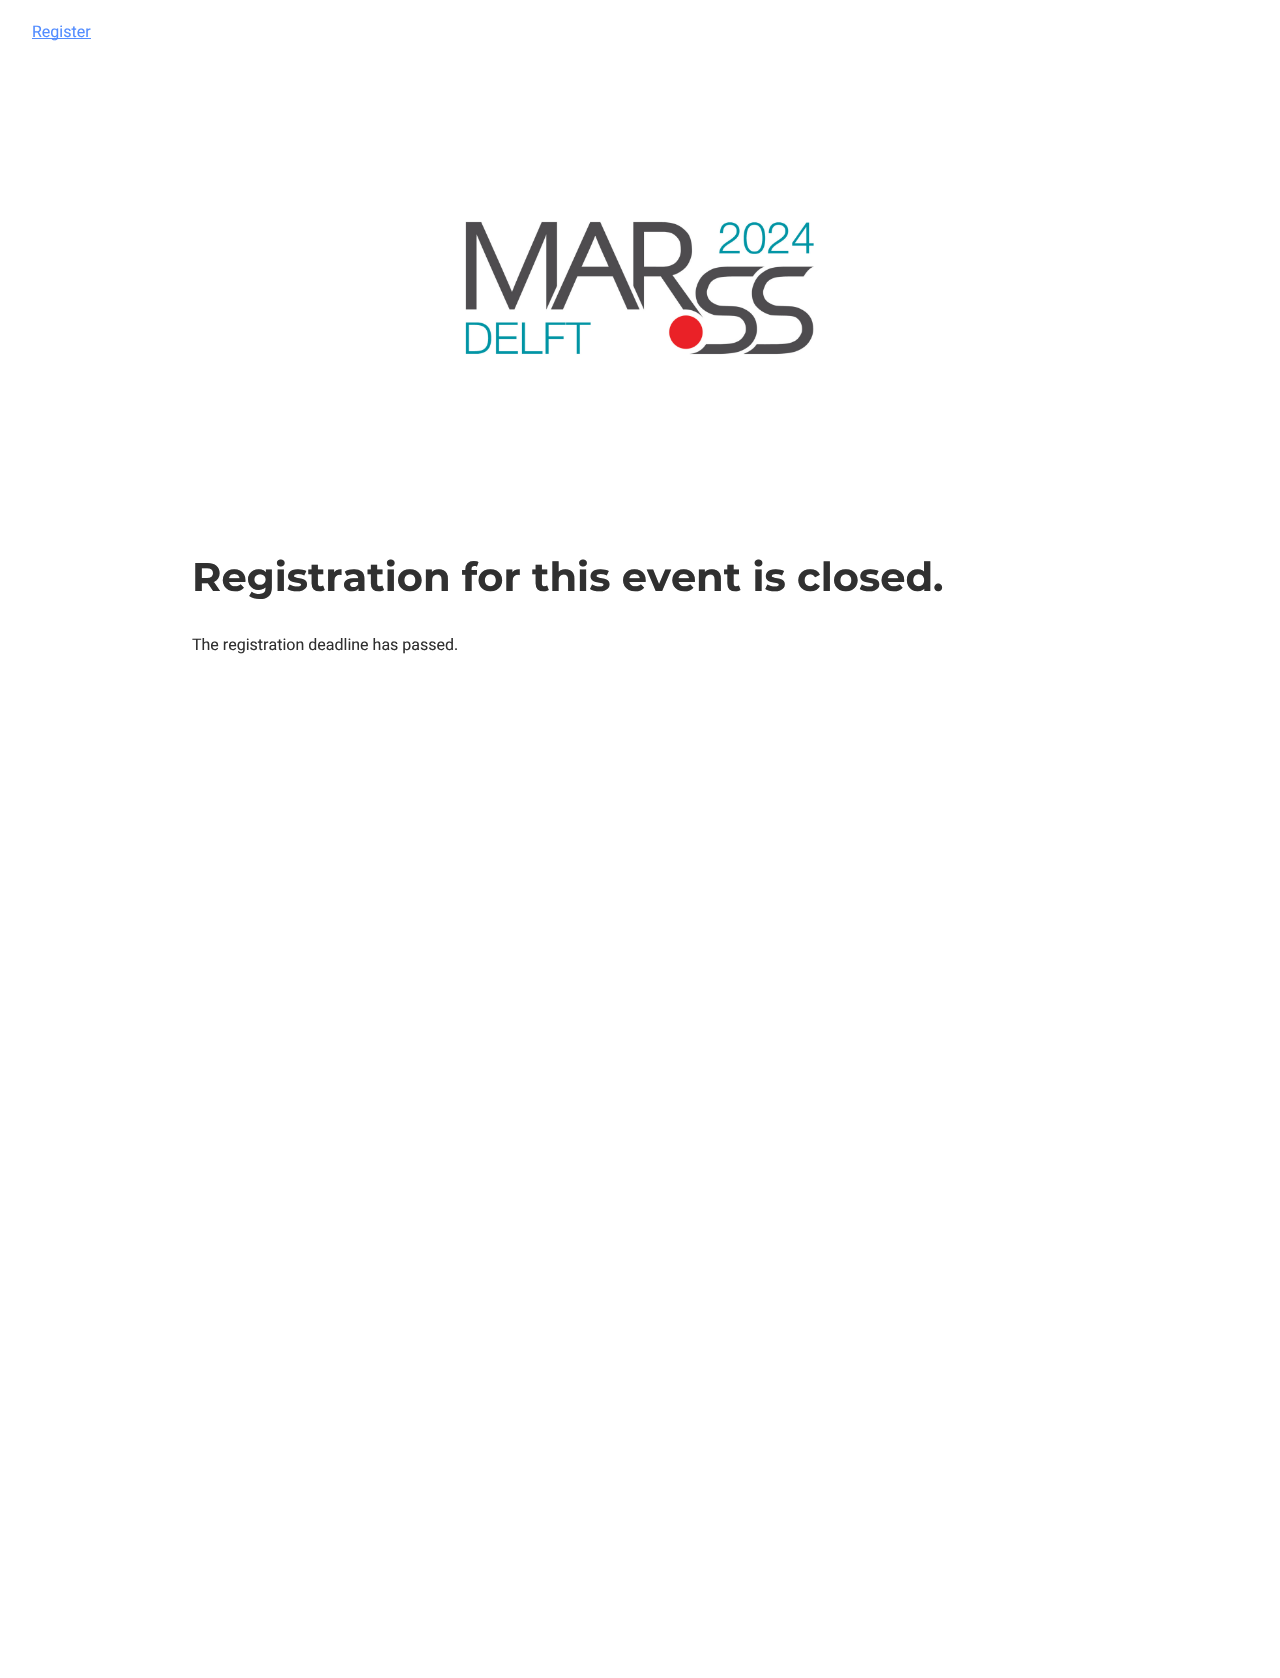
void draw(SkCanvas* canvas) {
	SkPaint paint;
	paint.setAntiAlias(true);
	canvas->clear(0xffffffff);
	paint.setColor(0xff538dff);
	canvas->drawRect(SkRect::MakeXYWH(32, 38, 59, 1), paint);
	SkFont f1(fontMgr->matchFamilyStyle("Roboto", SkFontStyle::Normal()), 16);
	f1.setSubpixel(true);
	canvas->drawString("Register", 32, 37, f1, paint);
	canvas->drawImageRect(SkImages::DeferredFromEncodedData(SkData::MakeFromFileName("img1.png")), SkRect::MakeXYWH(465, 221, 349, 134), SkSamplingOptions());
	SkFont f2(fontMgr->matchFamilyStyle("Montserrat", SkFontStyle::Bold()), 40);
	f2.setSubpixel(true);
	paint.setColor(0xff303030);
	canvas->drawString("Registration for this event is closed.", 192, 591, f2, paint);
	canvas->drawString("The registration deadline has passed.", 192, 650, f1, paint);
}
